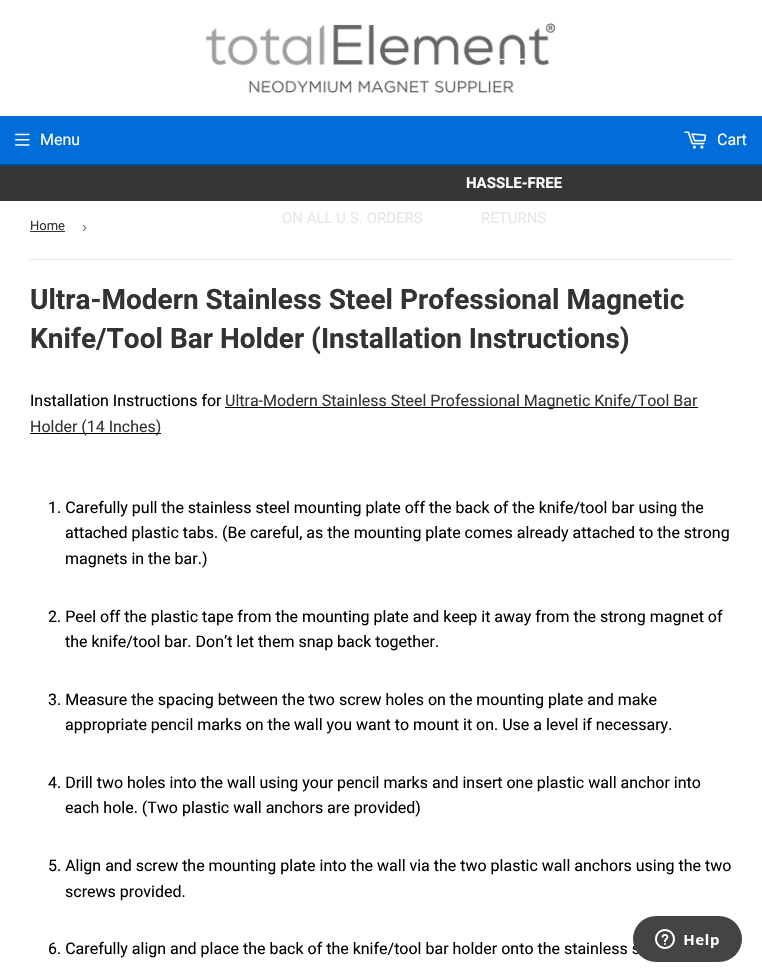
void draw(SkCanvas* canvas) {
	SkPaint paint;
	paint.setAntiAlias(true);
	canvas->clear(0xffffffff);
	canvas->drawImageRect(SkImages::DeferredFromEncodedData(SkData::MakeFromFileName("img1.png")), SkRect::MakeXYWH(206, 23, 350, 70), SkSamplingOptions());
	paint.setColor(0xff006dd9);
	canvas->drawRect(SkRect::MakeXYWH(0, 116, 762, 48), paint);
	paint.setColor(0xff004890);
	canvas->drawRect(SkRect::MakeXYWH(0, 164, 762, 2), paint);
	canvas->drawImageRect(SkImages::DeferredFromEncodedData(SkData::MakeFromFileName("img2.png")), SkRect::MakeXYWH(15, 133, 15, 13), SkSamplingOptions());
	SkFont f1(fontMgr->matchFamilyStyle("Roboto", SkFontStyle::Normal()), 16);
	f1.setSubpixel(true);
	paint.setColor(0xffffffff);
	canvas->drawString("Menu", 40, 145, f1, paint);
	canvas->drawImageRect(SkImages::DeferredFromEncodedData(SkData::MakeFromFileName("img3.png")), SkRect::MakeXYWH(684, 131, 23, 18), SkSamplingOptions());
	canvas->drawString("Cart", 717, 145, f1, paint);
	paint.setColor(0xff363636);
	canvas->drawRect(SkRect::MakeXYWH(0, 166, 762, 35), paint);
	SkFont f2(fontMgr->matchFamilyStyle("Roboto", SkFontStyle::Normal()), 15);
	f2.setSubpixel(true);
	paint.setColor(0xffe7e7e7);
	canvas->drawString("ON ALL U.S. ORDERS", 282, 223, f2, paint);
	SkFont f3(fontMgr->matchFamilyStyle("Roboto", SkFontStyle::Bold()), 15);
	f3.setSubpixel(true);
	paint.setColor(0xffffffff);
	canvas->drawString("HASSLE-FREE", 466, 188, f3, paint);
	paint.setColor(0xffe7e7e7);
	canvas->drawString("RETURNS", 481, 223, f2, paint);
	paint.setColor(0xffe6e6e6);
	canvas->drawRect(SkRect::MakeXYWH(30, 259, 702, 1), paint);
	SkFont f4(fontMgr->matchFamilyStyle("Roboto", SkFontStyle::Normal()), 13);
	f4.setSubpixel(true);
	paint.setColor(0xff333333);
	canvas->drawString("Home", 30, 230, f4, paint);
	canvas->drawRect(SkRect::MakeXYWH(30, 231, 35, 1), paint);
	SkFont f5(fontMgr->matchFamilyStyle("Liberation Sans", SkFontStyle::Normal()), 15);
	f5.setSubpixel(true);
	paint.setColor(0xff767676);
	canvas->drawString("›", 82, 232, f5, paint);
	SkFont f6(fontMgr->matchFamilyStyle("Roboto", SkFontStyle::Bold()), 28);
	f6.setSubpixel(true);
	paint.setColor(0xff333333);
	canvas->drawString("Ultra-Modern Stainless Steel Professional Magnetic", 30, 309, f6, paint);
	canvas->drawString("Knife/Tool Bar Holder (Installation Instructions)", 30, 348, f6, paint);
	paint.setColor(0xff000000);
	canvas->drawString("Installation Instructions for", 30, 406, f1, paint);
	canvas->drawRect(SkRect::MakeXYWH(225, 407, 473, 1), paint);
	paint.setColor(0xff333333);
	canvas->drawString("Ultra-Modern Stainless Steel Professional Magnetic Knife/Tool Bar", 225, 406, f1, paint);
	paint.setColor(0xff000000);
	canvas->drawRect(SkRect::MakeXYWH(30, 433, 131, 1), paint);
	paint.setColor(0xff333333);
	canvas->drawString("Holder (14 Inches)", 30, 432, f1, paint);
	paint.setColor(0xff000000);
	canvas->drawString("1. Carefully pull the stainless steel mounting plate off the back of the knife/tool bar using the", 48, 513, f1, paint);
	canvas->drawString("attached plastic tabs. (Be careful, as the mounting plate comes already attached to the strong", 65, 538, f1, paint);
	canvas->drawString("magnets in the bar.)", 65, 564, f1, paint);
	canvas->drawString("2. Peel off the plastic tape from the mounting plate and keep it away from the strong magnet of", 48, 622, f1, paint);
	canvas->drawString("the knife/tool bar. Don’t let them snap back together.", 65, 647, f1, paint);
	canvas->drawString("3. Measure the spacing between the two screw holes on the mounting plate and make", 48, 705, f1, paint);
	canvas->drawString("appropriate pencil marks on the wall you want to mount it on. Use a level if necessary.", 65, 730, f1, paint);
	canvas->drawString("4. Drill two holes into the wall using your pencil marks and insert one plastic wall anchor into", 48, 788, f1, paint);
	canvas->drawString("each hole. (Two plastic wall anchors are provided)", 65, 813, f1, paint);
	canvas->drawString("5. Align and screw the mounting plate into the wall via the two plastic wall anchors using the two", 48, 871, f1, paint);
	canvas->drawString("screws provided.", 65, 897, f1, paint);
	canvas->drawString("6. Carefully align and place the back of the knife/tool bar holder onto the stainless s", 48, 954, f1, paint);
	canvas->drawImageRect(SkImages::DeferredFromEncodedData(SkData::MakeFromFileName("img4.png")), SkRect::MakeXYWH(633, 916, 109, 46), SkSamplingOptions());
}
